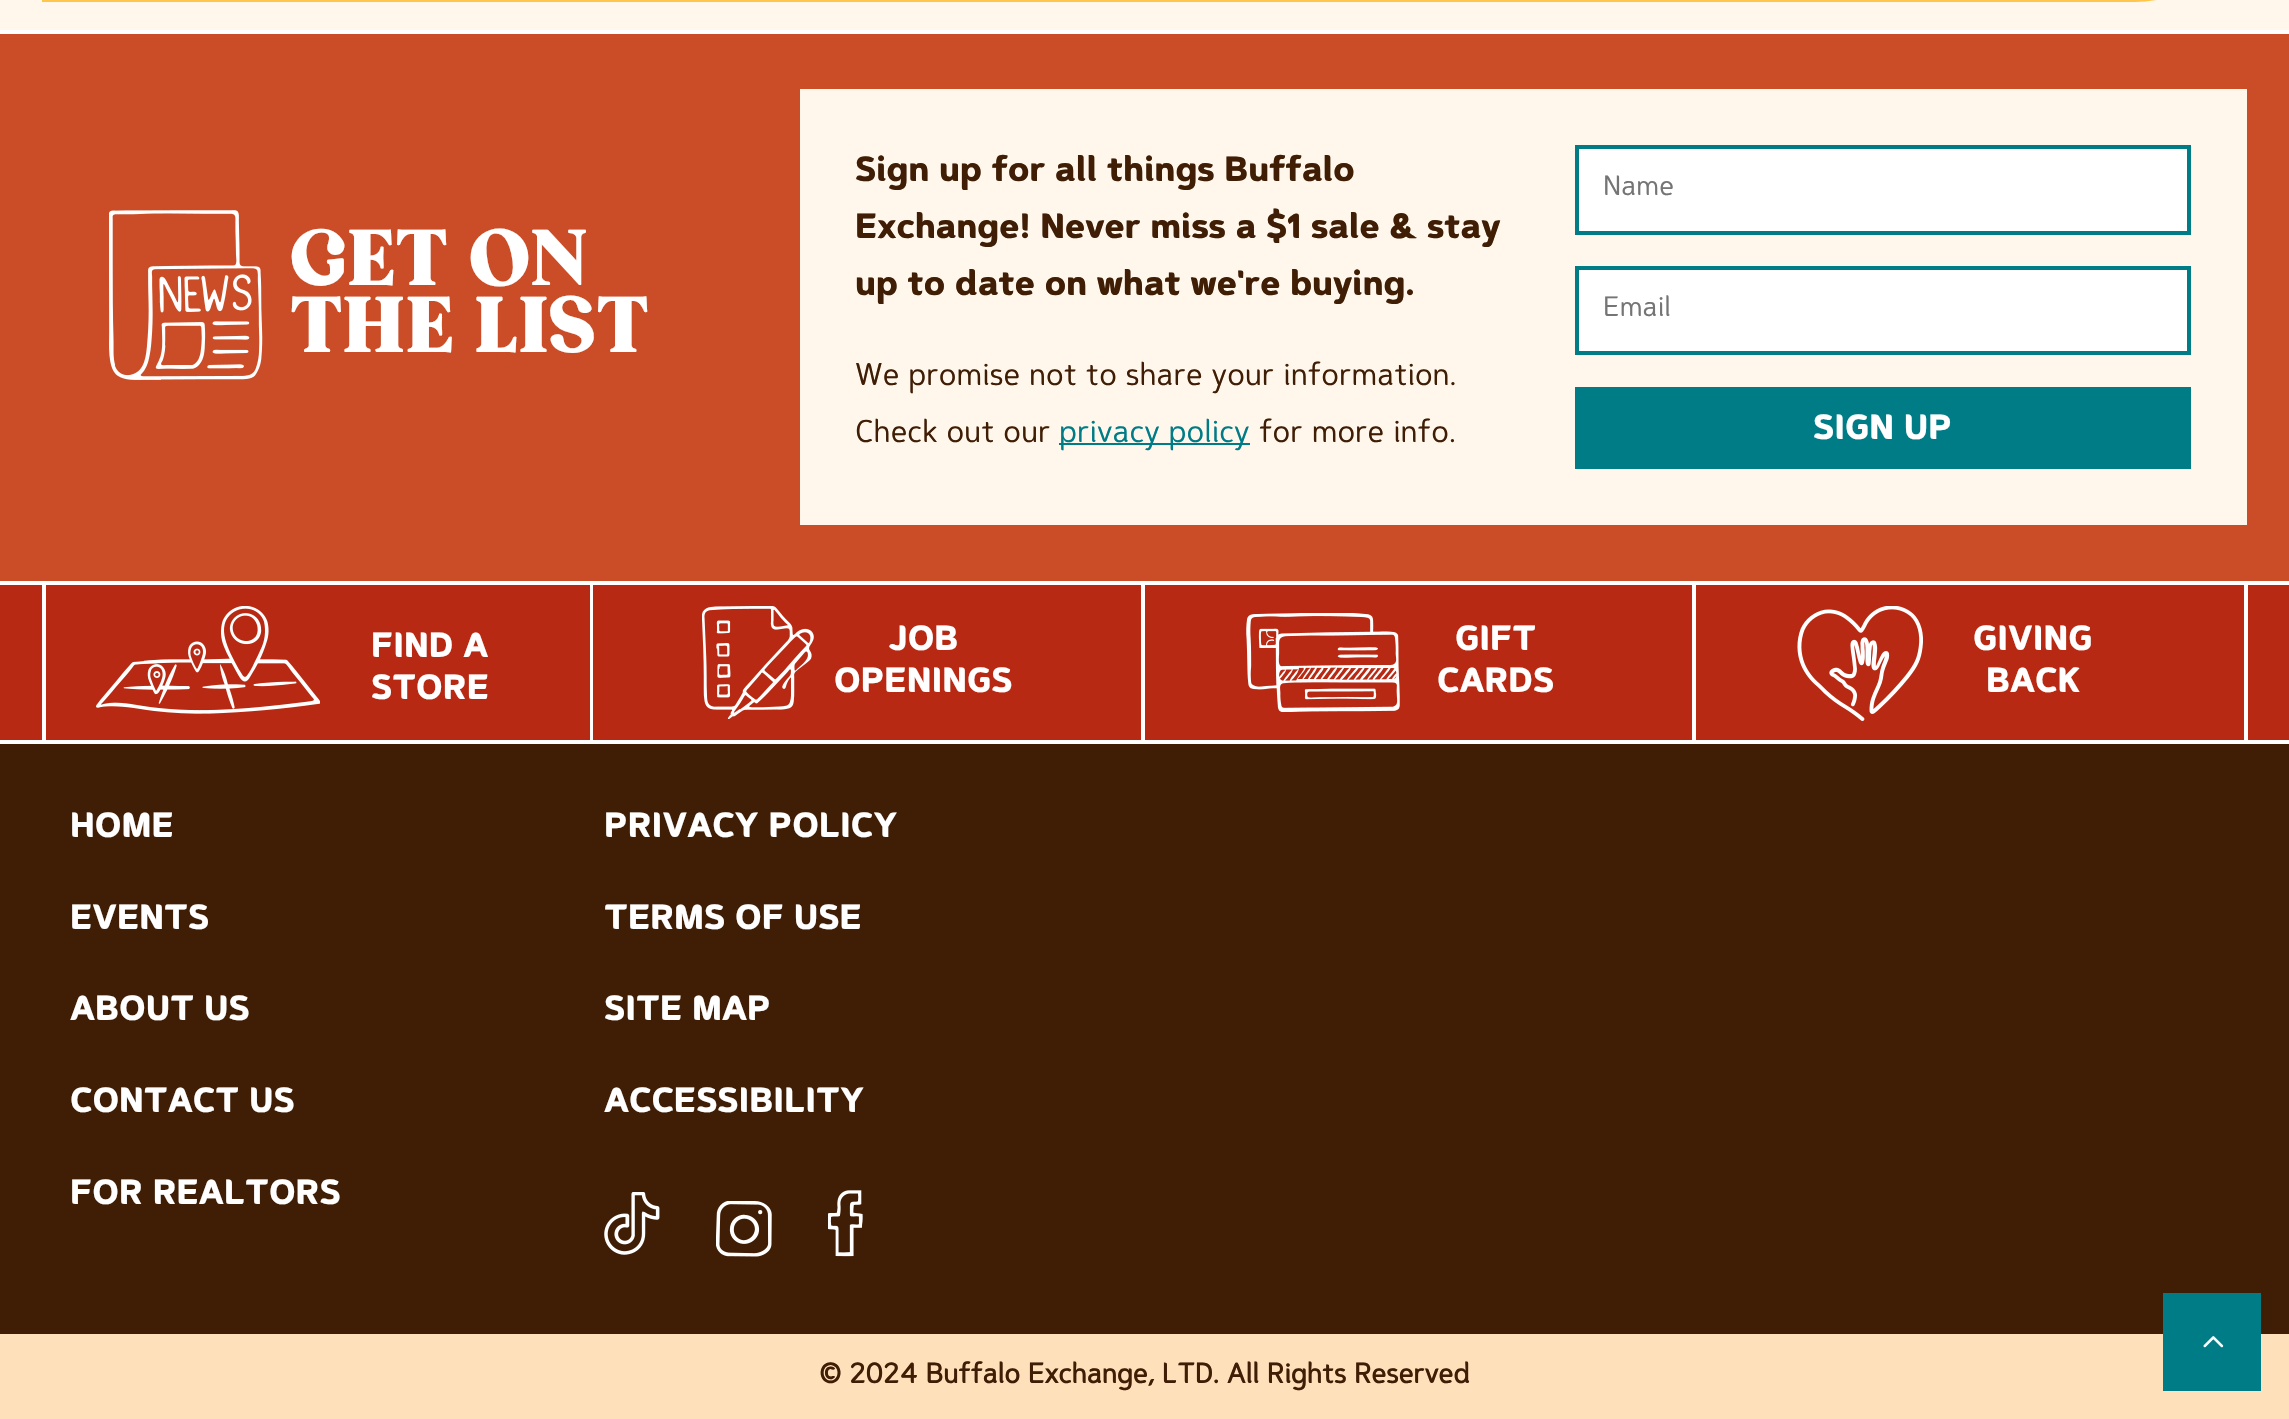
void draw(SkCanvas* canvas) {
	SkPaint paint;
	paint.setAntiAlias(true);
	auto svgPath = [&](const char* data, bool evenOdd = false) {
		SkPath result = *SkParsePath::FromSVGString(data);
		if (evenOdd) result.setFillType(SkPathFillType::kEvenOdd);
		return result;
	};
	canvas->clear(0xffffffff);
	paint.setColor(0xfffff7eb);
	canvas->drawRect(SkRect::MakeXYWH(0, 0, 2289, 30), paint);
	paint.setStroke(true);
	paint.setStrokeWidth(7);
	paint.setColor(0xffffc64c);
	canvas->drawPath(svgPath("M45.5-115.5H2243.5V-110C2243.5-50 2195-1.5 2135-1.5H45.5Z"), paint);
	paint.setStroke(false);
	paint.setColor(0xffca4d27);
	canvas->drawRect(SkRect::MakeXYWH(0, 34, 2289, 547), paint);
	canvas->drawImageRect(SkImages::DeferredFromEncodedData(SkData::MakeFromFileName("img1.png")), SkRect::MakeXYWH(109, 210, 154, 170), SkSamplingOptions());
	SkFont f1(fontMgr->matchFamilyStyle("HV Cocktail", SkFontStyle::Normal()), 84);
	f1.setSubpixel(true);
	paint.setColor(0xffffffff);
	canvas->drawString("GET ON", 290, 285, f1, paint);
	canvas->drawString("THE LIST", 290, 352, f1, paint);
	paint.setColor(0xfffff7eb);
	canvas->drawRect(SkRect::MakeXYWH(800, 89, 1447, 436), paint);
	SkFont f2(fontMgr->matchFamilyStyle("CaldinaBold", SkFontStyle::Bold()), 35);
	f2.setSubpixel(true);
	paint.setColor(0xff401e06);
	canvas->drawString("Sign up for all things Buffalo", 855, 181, f2, paint);
	canvas->drawString("Exchange! Never miss a $1 sale & stay", 855, 238, f2, paint);
	canvas->drawString("up to date on what we're buying.", 855, 295, f2, paint);
	SkFont f3(fontMgr->matchFamilyStyle("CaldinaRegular", SkFontStyle::Normal()), 31.5);
	f3.setSubpixel(true);
	canvas->drawString("We promise not to share your information.", 855, 385, f3, paint);
	canvas->drawString("Check out our", 855, 442, f3, paint);
	paint.setColor(0xff007c87);
	canvas->drawRect(SkRect::MakeXYWH(1059, 443, 191, 2), paint);
	canvas->drawString("privacy policy", 1059, 442, f3, paint);
	paint.setColor(0xff401e06);
	canvas->drawString("for more info.", 1259, 442, f3, paint);
	paint.setColor(0xffffffff);
	canvas->drawRect(SkRect::MakeXYWH(1577, 147, 612, 86), paint);
	paint.setStroke(true);
	paint.setStrokeWidth(4);
	paint.setColor(0xff007c87);
	canvas->drawRect(SkRect::MakeXYWH(1577, 147, 612, 86), paint);
	SkFont f4(fontMgr->matchFamilyStyle("CaldinaRegular", SkFontStyle::Normal()), 28);
	f4.setSubpixel(true);
	paint.setStroke(false);
	paint.setColor(0xff757575);
	canvas->drawString("Name", 1603, 195, f4, paint);
	paint.setColor(0xffffffff);
	canvas->drawRect(SkRect::MakeXYWH(1577, 268, 612, 85), paint);
	paint.setStroke(true);
	paint.setColor(0xff007c87);
	canvas->drawRect(SkRect::MakeXYWH(1577, 268, 612, 85), paint);
	paint.setStroke(false);
	paint.setColor(0xff757575);
	canvas->drawString("Email", 1603, 316, f4, paint);
	paint.setColor(0xff007c87);
	canvas->drawRect(SkRect::MakeXYWH(1575, 387, 616, 82), paint);
	paint.setColor(0xffffffff);
	canvas->drawString("SIGN UP", 1813, 439, f2, paint);
	paint.setColor(0xffb72913);
	canvas->drawRect(SkRect::MakeXYWH(0, 585, 2289, 155), paint);
	paint.setColor(0xffffffff);
	canvas->drawRect(SkRect::MakeXYWH(590, 585, 3, 155), paint);
	canvas->drawRect(SkRect::MakeXYWH(42, 585, 4, 155), paint);
	canvas->drawImageRect(SkImages::DeferredFromEncodedData(SkData::MakeFromFileName("img2.png")), SkRect::MakeXYWH(96, 606, 224, 108), SkSamplingOptions());
	canvas->drawString("FIND A", 371, 657, f2, paint);
	canvas->drawString("STORE", 371, 699, f2, paint);
	canvas->drawRect(SkRect::MakeXYWH(1141, 585, 4, 155), paint);
	canvas->drawImageRect(SkImages::DeferredFromEncodedData(SkData::MakeFromFileName("img3.png")), SkRect::MakeXYWH(702, 606, 112, 113), SkSamplingOptions());
	canvas->drawString("JOB", 888, 650, f2, paint);
	canvas->drawString("OPENINGS", 834, 692, f2, paint);
	canvas->drawRect(SkRect::MakeXYWH(1692, 585, 4, 155), paint);
	canvas->drawImageRect(SkImages::DeferredFromEncodedData(SkData::MakeFromFileName("img4.png")), SkRect::MakeXYWH(1246, 613, 154, 99), SkSamplingOptions());
	canvas->drawString("GIFT", 1455, 650, f2, paint);
	canvas->drawString("CARDS", 1437, 692, f2, paint);
	canvas->drawRect(SkRect::MakeXYWH(2244, 585, 4, 155), paint);
	canvas->drawImageRect(SkImages::DeferredFromEncodedData(SkData::MakeFromFileName("img5.png")), SkRect::MakeXYWH(1797, 606, 126, 115), SkSamplingOptions());
	canvas->drawString("GIVING", 1973, 650, f2, paint);
	canvas->drawString("BACK", 1986, 692, f2, paint);
	paint.setColor(0xff401e06);
	canvas->drawRect(SkRect::MakeXYWH(0, 744, 2289, 590), paint);
	paint.setColor(0xffffffff);
	canvas->drawString("HOME", 70, 837, f2, paint);
	canvas->drawString("EVENTS", 70, 929, f2, paint);
	canvas->drawString("ABOUT US", 70, 1020, f2, paint);
	canvas->drawString("CONTACT US", 70, 1112, f2, paint);
	canvas->drawString("FOR REALTORS", 70, 1204, f2, paint);
	canvas->drawString("PRIVACY POLICY", 604, 837, f2, paint);
	canvas->drawString("TERMS OF USE", 604, 929, f2, paint);
	canvas->drawString("SITE MAP", 604, 1020, f2, paint);
	canvas->drawString("ACCESSIBILITY", 604, 1112, f2, paint);
	canvas->drawImageRect(SkImages::DeferredFromEncodedData(SkData::MakeFromFileName("img6.png")), SkRect::MakeXYWH(604, 1192, 56, 63), SkSamplingOptions());
	canvas->drawImageRect(SkImages::DeferredFromEncodedData(SkData::MakeFromFileName("img7.png")), SkRect::MakeXYWH(716, 1201, 56, 56), SkSamplingOptions());
	canvas->drawImageRect(SkImages::DeferredFromEncodedData(SkData::MakeFromFileName("img8.png")), SkRect::MakeXYWH(828, 1190, 35, 67), SkSamplingOptions());
	paint.setColor(0xfffee0ba);
	canvas->drawRect(SkRect::MakeXYWH(0, 1334, 2289, 85), paint);
	SkFont f5(fontMgr->matchFamilyStyle("CaldinaRegular", SkFontStyle::Bold()), 28);
	f5.setSubpixel(true);
	paint.setColor(0xff401e06);
	canvas->drawString("© 2024 Buffalo Exchange, LTD. All Rights Reserved", 819, 1383, f5, paint);
	paint.setColor(0xff007c87);
	canvas->drawRect(SkRect::MakeXYWH(2163, 1293, 98, 98), paint);
	canvas->drawImageRect(SkImages::DeferredFromEncodedData(SkData::MakeFromFileName("img9.png")), SkRect::MakeXYWH(2203, 1336, 21, 12), SkSamplingOptions());
}
